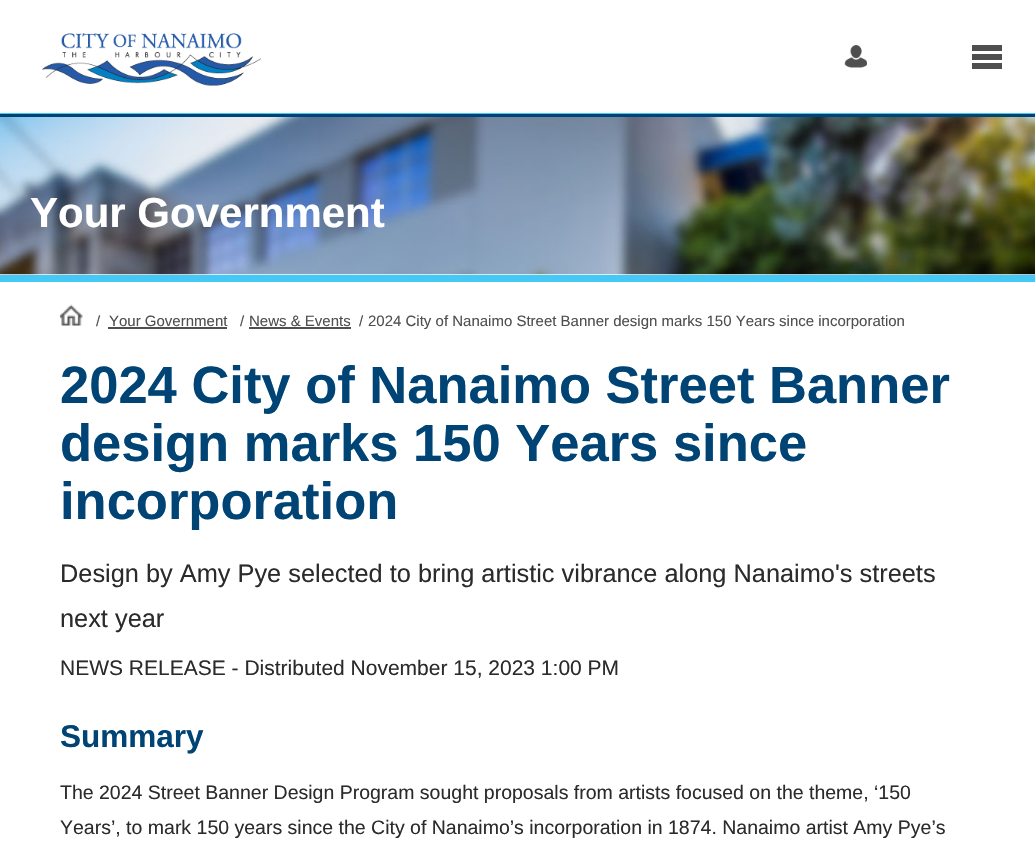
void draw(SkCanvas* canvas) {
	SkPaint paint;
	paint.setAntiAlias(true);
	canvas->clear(0xffffffff);
	canvas->drawImageRect(SkImages::DeferredFromEncodedData(SkData::MakeFromFileName("img1.png")), SkRect::MakeXYWH(42, 33, 219, 53), SkSamplingOptions());
	canvas->drawImageRect(SkImages::DeferredFromEncodedData(SkData::MakeFromFileName("img2.png")), SkRect::MakeXYWH(844, 45, 23, 23), SkSamplingOptions());
	paint.setColor(0xff4f4f4f);
	canvas->drawRect(SkRect::MakeXYWH(972, 54, 30, 6), paint);
	canvas->drawRect(SkRect::MakeXYWH(972, 45, 30, 6), paint);
	canvas->drawRect(SkRect::MakeXYWH(972, 63, 30, 6), paint);
	paint.setColor(0xff44c8f5);
	canvas->drawRect(SkRect::MakeXYWH(0, 113, 1035, 1), paint);
	canvas->drawRect(SkRect::MakeXYWH(0, 275, 1035, 7), paint);
	paint.setColor(0xff004475);
	canvas->drawRect(SkRect::MakeXYWH(0, 114, 1035, 3), paint);
	canvas->drawImageRect(SkImages::DeferredFromEncodedData(SkData::MakeFromFileName("img3.png")), SkRect::MakeXYWH(0, 117, 1035, 158), SkSamplingOptions());
	SkFont f1(fontMgr->matchFamilyStyle("Liberation Sans", SkFontStyle::Bold()), 42);
	f1.setSubpixel(true);
	paint.setColor(0xffffffff);
	canvas->drawString("Your Government", 30, 227, f1, paint);
	canvas->drawImageRect(SkImages::DeferredFromEncodedData(SkData::MakeFromFileName("img4.png")), SkRect::MakeXYWH(60, 304, 23, 22), SkSamplingOptions());
	SkFont f2(fontMgr->matchFamilyStyle("Liberation Sans", SkFontStyle::Normal()), 15);
	f2.setSubpixel(true);
	paint.setColor(0xff4f4f4f);
	canvas->drawString("/", 96, 326, f2, paint);
	canvas->drawString("Your Government", 109, 326, f2, paint);
	canvas->drawRect(SkRect::MakeXYWH(108, 327, 119, 2), paint);
	canvas->drawString("/", 240, 326, f2, paint);
	canvas->drawString("News & Events", 249, 326, f2, paint);
	canvas->drawRect(SkRect::MakeXYWH(249, 327, 102, 2), paint);
	canvas->drawString("/", 359, 326, f2, paint);
	canvas->drawString("2024 City of Nanaimo Street Banner design marks 150 Years since incorporation", 368, 326, f2, paint);
	SkFont f3(fontMgr->matchFamilyStyle("Liberation Sans", SkFontStyle::Bold()), 52.5);
	f3.setSubpixel(true);
	paint.setColor(0xff004475);
	canvas->drawString("2024 City of Nanaimo Street Banner", 60, 403, f3, paint);
	canvas->drawString("design marks 150 Years since", 60, 461, f3, paint);
	canvas->drawString("incorporation", 60, 519, f3, paint);
	SkFont f4(fontMgr->matchFamilyStyle("Liberation Sans", SkFontStyle::Normal()), 25.35);
	f4.setSubpixel(true);
	paint.setColor(0xff2b2b2b);
	canvas->drawString("Design by Amy Pye selected to bring artistic vibrance along Nanaimo's streets", 60, 582, f4, paint);
	canvas->drawString("next year", 60, 627, f4, paint);
	SkFont f5(fontMgr->matchFamilyStyle("Liberation Sans", SkFontStyle::Normal()), 21);
	f5.setSubpixel(true);
	canvas->drawString("NEWS RELEASE - Distributed November 15, 2023 1:00 PM", 60, 675, f5, paint);
	SkFont f6(fontMgr->matchFamilyStyle("Liberation Sans", SkFontStyle::Bold()), 31.5);
	f6.setSubpixel(true);
	paint.setColor(0xff004475);
	canvas->drawString("Summary", 60, 747, f6, paint);
	SkFont f7(fontMgr->matchFamilyStyle("Liberation Sans", SkFontStyle::Normal()), 19.5);
	f7.setSubpixel(true);
	paint.setColor(0xff2b2b2b);
	canvas->drawString("The 2024 Street Banner Design Program sought proposals from artists focused on the theme, ‘150", 60, 799, f7, paint);
	canvas->drawString("Years’, to mark 150 years since the City of Nanaimo’s incorporation in 1874. Nanaimo artist Amy Pye’s", 60, 834, f7, paint);
}
